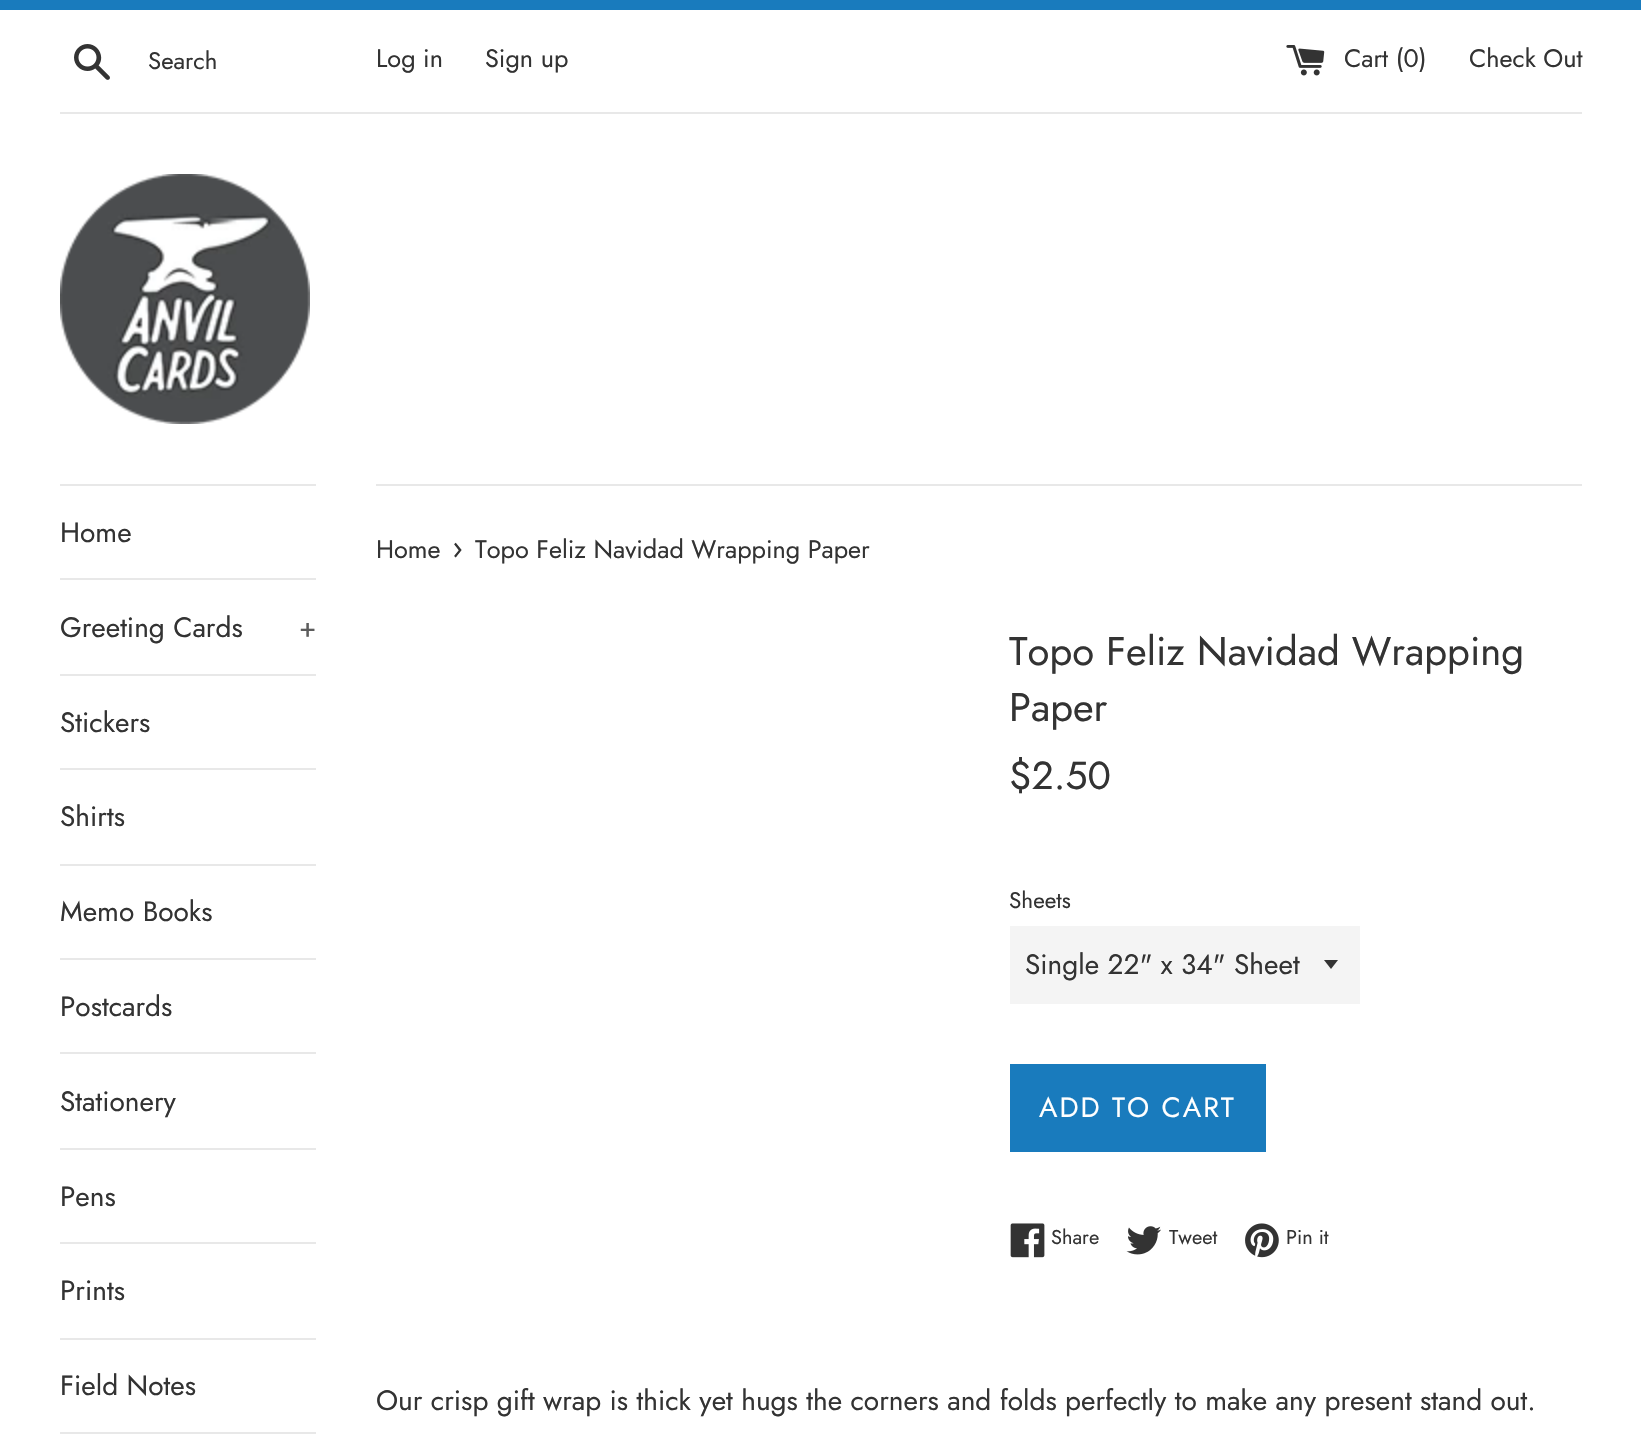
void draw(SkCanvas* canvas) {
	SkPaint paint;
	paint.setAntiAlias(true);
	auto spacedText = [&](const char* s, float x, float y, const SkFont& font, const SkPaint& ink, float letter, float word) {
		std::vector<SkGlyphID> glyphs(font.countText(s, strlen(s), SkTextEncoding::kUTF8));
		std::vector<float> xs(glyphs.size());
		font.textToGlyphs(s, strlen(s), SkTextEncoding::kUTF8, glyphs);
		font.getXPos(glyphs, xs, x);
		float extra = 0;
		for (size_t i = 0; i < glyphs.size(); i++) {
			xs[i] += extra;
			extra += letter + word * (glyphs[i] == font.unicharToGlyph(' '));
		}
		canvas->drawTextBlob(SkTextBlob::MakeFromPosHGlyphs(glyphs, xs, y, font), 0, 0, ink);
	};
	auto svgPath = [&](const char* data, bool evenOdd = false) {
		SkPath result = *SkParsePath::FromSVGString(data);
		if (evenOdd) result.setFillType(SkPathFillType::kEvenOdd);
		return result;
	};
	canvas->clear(0xffffffff);
	paint.setColor(0xff197bbd);
	canvas->drawRect(SkRect::MakeXYWH(0, 0, 1641, 10), paint);
	canvas->drawImageRect(SkImages::DeferredFromEncodedData(SkData::MakeFromFileName("img1.png")), SkRect::MakeXYWH(74, 44, 36, 36), SkSamplingOptions());
	SkFont f1(fontMgr->matchFamilyStyle("Jost", SkFontStyle::Normal()), 24);
	f1.setSubpixel(true);
	paint.setColor(0xff333333);
	canvas->drawString("Search", 148, 69, f1, paint);
	SkFont f2(fontMgr->matchFamilyStyle("Jost", SkFontStyle::Normal()), 25.25);
	f2.setSubpixel(true);
	canvas->drawString("Log in", 376, 67, f2, paint);
	canvas->drawString("Sign up", 485, 67, f2, paint);
	canvas->drawImageRect(SkImages::DeferredFromEncodedData(SkData::MakeFromFileName("img2.png")), SkRect::MakeXYWH(1286, 45, 39, 31), SkSamplingOptions());
	canvas->drawString("Cart (0)", 1344, 67, f2, paint);
	canvas->drawString("Check Out", 1469, 67, f2, paint);
	paint.setColor(0xffe8e8e8);
	canvas->drawRect(SkRect::MakeXYWH(60, 112, 1522, 2), paint);
	canvas->drawImageRect(SkImages::DeferredFromEncodedData(SkData::MakeFromFileName("img3.png")), SkRect::MakeXYWH(60, 174, 250, 250), SkSamplingOptions());
	canvas->drawRect(SkRect::MakeXYWH(60, 484, 256, 2), paint);
	canvas->drawRect(SkRect::MakeXYWH(60, 578, 256, 2), paint);
	SkFont f3(fontMgr->matchFamilyStyle("Jost", SkFontStyle::Normal()), 28);
	f3.setSubpixel(true);
	paint.setColor(0xff333333);
	canvas->drawString("Home", 60, 542, f3, paint);
	paint.setColor(0xffe8e8e8);
	canvas->drawRect(SkRect::MakeXYWH(60, 674, 256, 2), paint);
	paint.setColor(0xff333333);
	canvas->drawString("Greeting Cards", 60, 637, f3, paint);
	paint.setColor(0xff5c5c5c);
	canvas->drawString("+", 299, 637, f3, paint);
	paint.setColor(0xffe8e8e8);
	canvas->drawRect(SkRect::MakeXYWH(60, 768, 256, 2), paint);
	paint.setColor(0xff333333);
	canvas->drawString("Stickers", 60, 732, f3, paint);
	paint.setColor(0xffe8e8e8);
	canvas->drawRect(SkRect::MakeXYWH(60, 864, 256, 2), paint);
	paint.setColor(0xff333333);
	canvas->drawString("Shirts", 60, 826, f3, paint);
	paint.setColor(0xffe8e8e8);
	canvas->drawRect(SkRect::MakeXYWH(60, 958, 256, 2), paint);
	paint.setColor(0xff333333);
	canvas->drawString("Memo Books", 60, 921, f3, paint);
	paint.setColor(0xffe8e8e8);
	canvas->drawRect(SkRect::MakeXYWH(60, 1052, 256, 2), paint);
	paint.setColor(0xff333333);
	canvas->drawString("Postcards", 60, 1016, f3, paint);
	paint.setColor(0xffe8e8e8);
	canvas->drawRect(SkRect::MakeXYWH(60, 1148, 256, 2), paint);
	paint.setColor(0xff333333);
	canvas->drawString("Stationery", 60, 1111, f3, paint);
	paint.setColor(0xffe8e8e8);
	canvas->drawRect(SkRect::MakeXYWH(60, 1242, 256, 2), paint);
	paint.setColor(0xff333333);
	canvas->drawString("Pens", 60, 1206, f3, paint);
	paint.setColor(0xffe8e8e8);
	canvas->drawRect(SkRect::MakeXYWH(60, 1338, 256, 2), paint);
	paint.setColor(0xff333333);
	canvas->drawString("Prints", 60, 1300, f3, paint);
	paint.setColor(0xffe8e8e8);
	canvas->drawRect(SkRect::MakeXYWH(60, 1432, 256, 2), paint);
	paint.setColor(0xff333333);
	canvas->drawString("Field Notes", 60, 1395, f3, paint);
	paint.setColor(0xffe8e8e8);
	canvas->drawRect(SkRect::MakeXYWH(376, 484, 1206, 2), paint);
	paint.setColor(0xff333333);
	canvas->drawString("Home", 376, 558, f2, paint);
	SkFont f4(fontMgr->matchFamilyStyle("Jost", SkFontStyle::Normal()), 31);
	f4.setSubpixel(true);
	canvas->drawString("›", 452, 558, f4, paint);
	canvas->drawString("Topo Feliz Navidad Wrapping Paper", 475, 558, f2, paint);
	SkFont f5(fontMgr->matchFamilyStyle("Jost", SkFontStyle::Normal()), 40);
	f5.setSubpixel(true);
	canvas->drawString("Topo Feliz Navidad Wrapping", 1009, 665, f5, paint);
	canvas->drawString("Paper", 1009, 721, f5, paint);
	SkFont f6(fontMgr->matchFamilyStyle("Jost", SkFontStyle::Normal()), 39);
	f6.setSubpixel(true);
	canvas->drawString("$2.50", 1009, 789, f6, paint);
	SkFont f7(fontMgr->matchFamilyStyle("Jost", SkFontStyle::Normal()), 22.5);
	f7.setSubpixel(true);
	canvas->drawString("Sheets", 1009, 908, f7, paint);
	paint.setColor(0xfff4f4f4);
	canvas->drawRect(SkRect::MakeXYWH(1010, 926, 350, 78), paint);
	paint.setColor(0xff333333);
	canvas->drawPath(svgPath("M1324 960L1331 969L1338 960Z"), paint);
	canvas->drawString("Single 22\" x 34\" Sheet", 1025, 974, f3, paint);
	paint.setColor(0xff197bbd);
	canvas->drawRect(SkRect::MakeXYWH(1010, 1064, 256, 88), paint);
	paint.setColor(0xffffffff);
	spacedText("ADD TO CART", 1039, 1117, f3, paint, 2, 0);
	canvas->drawImageRect(SkImages::DeferredFromEncodedData(SkData::MakeFromFileName("img4.png")), SkRect::MakeXYWH(1010, 1223, 35, 35), SkSamplingOptions());
	SkFont f8(fontMgr->matchFamilyStyle("Jost", SkFontStyle::Normal()), 20);
	f8.setSubpixel(true);
	paint.setColor(0xff333333);
	canvas->drawString("Share", 1051, 1244, f8, paint);
	canvas->drawImageRect(SkImages::DeferredFromEncodedData(SkData::MakeFromFileName("img5.png")), SkRect::MakeXYWH(1126, 1226, 35, 29), SkSamplingOptions());
	canvas->drawString("Tweet", 1169, 1244, f8, paint);
	canvas->drawImageRect(SkImages::DeferredFromEncodedData(SkData::MakeFromFileName("img6.png")), SkRect::MakeXYWH(1245, 1223, 34, 35), SkSamplingOptions());
	canvas->drawString("Pin it", 1286, 1244, f8, paint);
	canvas->drawString("Our crisp gift wrap is thick yet hugs the corners and folds perfectly to make any present stand out.", 376, 1410, f3, paint);
}
